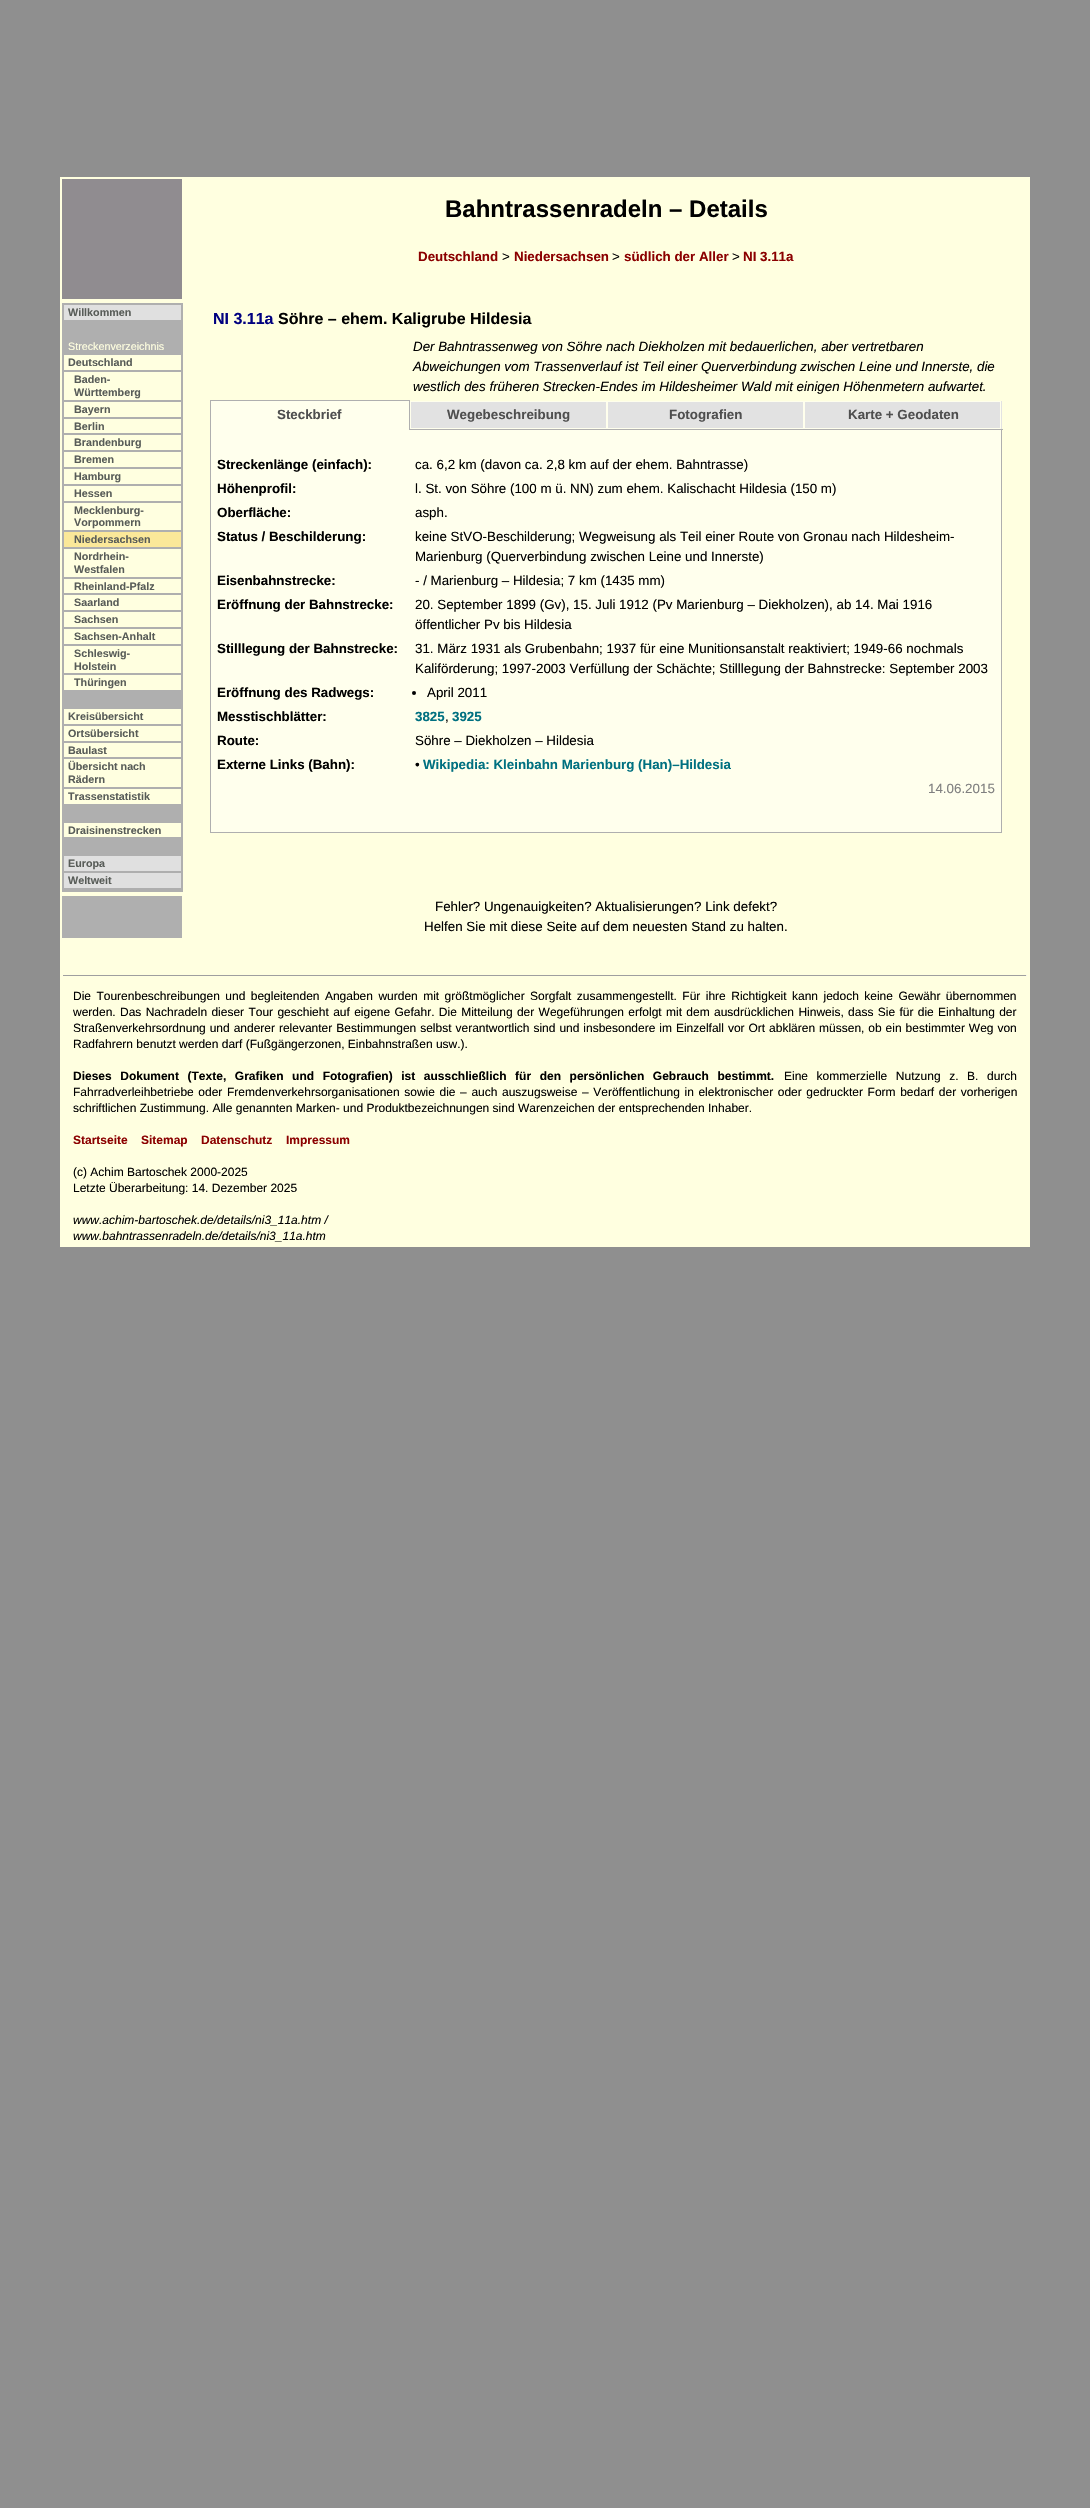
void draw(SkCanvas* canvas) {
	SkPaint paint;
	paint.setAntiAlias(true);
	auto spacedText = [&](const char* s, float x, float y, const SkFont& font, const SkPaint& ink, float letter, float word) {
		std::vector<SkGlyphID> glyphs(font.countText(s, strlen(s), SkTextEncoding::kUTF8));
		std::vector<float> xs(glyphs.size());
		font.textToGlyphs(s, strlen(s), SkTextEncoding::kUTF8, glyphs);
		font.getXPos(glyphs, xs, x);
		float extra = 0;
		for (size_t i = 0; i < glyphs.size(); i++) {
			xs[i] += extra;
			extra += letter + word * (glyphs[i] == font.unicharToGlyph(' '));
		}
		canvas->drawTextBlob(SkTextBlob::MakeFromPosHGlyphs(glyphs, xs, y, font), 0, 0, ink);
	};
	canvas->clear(0xff8f8f8f);
	paint.setColor(0xffffffe0);
	canvas->drawRect(SkRect::MakeXYWH(60, 177, 970, 1070), paint);
	paint.setColor(0xff908c90);
	canvas->drawRect(SkRect::MakeXYWH(62, 179, 120, 120), paint);
	SkFont f1(fontMgr->matchFamilyStyle("Liberation Sans", SkFontStyle::Bold()), 24);
	f1.setSubpixel(true);
	paint.setColor(0xff000000);
	canvas->drawString("Bahntrassenradeln – Details", 445, 217, f1, paint);
	SkFont f2(fontMgr->matchFamilyStyle("Liberation Sans", SkFontStyle::Bold()), 13.35);
	f2.setSubpixel(true);
	paint.setColor(0xff8b0000);
	canvas->drawString("Deutschland", 418, 261, f2, paint);
	SkFont f3(fontMgr->matchFamilyStyle("Liberation Sans", SkFontStyle::Normal()), 13.35);
	f3.setSubpixel(true);
	paint.setColor(0xff000000);
	canvas->drawString(">", 502, 261, f3, paint);
	paint.setColor(0xff8b0000);
	canvas->drawString("Niedersachsen", 514, 261, f2, paint);
	paint.setColor(0xff000000);
	canvas->drawString(">", 612, 261, f3, paint);
	paint.setColor(0xff8b0000);
	canvas->drawString("südlich der Aller", 624, 261, f2, paint);
	paint.setColor(0xff000000);
	canvas->drawString(">", 732, 261, f3, paint);
	paint.setColor(0xff8b0000);
	canvas->drawString("NI 3.11a", 743, 261, f2, paint);
	paint.setColor(0xffafafaf);
	canvas->drawRect(SkRect::MakeXYWH(62, 303, 121, 589), paint);
	paint.setColor(0xffe0e0e0);
	canvas->drawRect(SkRect::MakeXYWH(64, 305, 117, 15), paint);
	SkFont f4(fontMgr->matchFamilyStyle("Liberation Sans", SkFontStyle::Bold()), 10.75);
	f4.setSubpixel(true);
	paint.setColor(0xff585c58);
	canvas->drawString("Willkommen", 68, 316, f4, paint);
	SkFont f5(fontMgr->matchFamilyStyle("Liberation Sans", SkFontStyle::Normal()), 10.75);
	f5.setSubpixel(true);
	paint.setColor(0xffffffe0);
	canvas->drawString("Streckenverzeichnis", 68, 350, f5, paint);
	canvas->drawRect(SkRect::MakeXYWH(64, 355, 117, 15), paint);
	paint.setColor(0xff585c58);
	canvas->drawString("Deutschland", 68, 366, f4, paint);
	paint.setColor(0xffffffe0);
	canvas->drawRect(SkRect::MakeXYWH(64, 372, 117, 28), paint);
	paint.setColor(0xff585c58);
	canvas->drawString("Baden-", 74, 383, f4, paint);
	canvas->drawString("Württemberg", 74, 396, f4, paint);
	paint.setColor(0xffffffe0);
	canvas->drawRect(SkRect::MakeXYWH(64, 402, 117, 15), paint);
	paint.setColor(0xff585c58);
	canvas->drawString("Bayern", 74, 413, f4, paint);
	paint.setColor(0xffffffe0);
	canvas->drawRect(SkRect::MakeXYWH(64, 419, 117, 14), paint);
	paint.setColor(0xff585c58);
	canvas->drawString("Berlin", 74, 430, f4, paint);
	paint.setColor(0xffffffe0);
	canvas->drawRect(SkRect::MakeXYWH(64, 435, 117, 15), paint);
	paint.setColor(0xff585c58);
	canvas->drawString("Brandenburg", 74, 446, f4, paint);
	paint.setColor(0xffffffe0);
	canvas->drawRect(SkRect::MakeXYWH(64, 452, 117, 15), paint);
	paint.setColor(0xff585c58);
	canvas->drawString("Bremen", 74, 463, f4, paint);
	paint.setColor(0xffffffe0);
	canvas->drawRect(SkRect::MakeXYWH(64, 469, 117, 15), paint);
	paint.setColor(0xff585c58);
	canvas->drawString("Hamburg", 74, 480, f4, paint);
	paint.setColor(0xffffffe0);
	canvas->drawRect(SkRect::MakeXYWH(64, 486, 117, 15), paint);
	paint.setColor(0xff585c58);
	canvas->drawString("Hessen", 74, 497, f4, paint);
	paint.setColor(0xffffffe0);
	canvas->drawRect(SkRect::MakeXYWH(64, 503, 117, 27), paint);
	paint.setColor(0xff585c58);
	canvas->drawString("Mecklenburg-", 74, 514, f4, paint);
	canvas->drawString("Vorpommern", 74, 526, f4, paint);
	paint.setColor(0xfffbe899);
	canvas->drawRect(SkRect::MakeXYWH(64, 532, 117, 15), paint);
	paint.setColor(0xff585c58);
	canvas->drawString("Niedersachsen", 74, 543, f4, paint);
	paint.setColor(0xffffffe0);
	canvas->drawRect(SkRect::MakeXYWH(64, 549, 117, 28), paint);
	paint.setColor(0xff585c58);
	canvas->drawString("Nordrhein-", 74, 560, f4, paint);
	canvas->drawString("Westfalen", 74, 573, f4, paint);
	paint.setColor(0xffffffe0);
	canvas->drawRect(SkRect::MakeXYWH(64, 579, 117, 14), paint);
	paint.setColor(0xff585c58);
	canvas->drawString("Rheinland-Pfalz", 74, 590, f4, paint);
	paint.setColor(0xffffffe0);
	canvas->drawRect(SkRect::MakeXYWH(64, 595, 117, 15), paint);
	paint.setColor(0xff585c58);
	canvas->drawString("Saarland", 74, 606, f4, paint);
	paint.setColor(0xffffffe0);
	canvas->drawRect(SkRect::MakeXYWH(64, 612, 117, 15), paint);
	paint.setColor(0xff585c58);
	canvas->drawString("Sachsen", 74, 623, f4, paint);
	paint.setColor(0xffffffe0);
	canvas->drawRect(SkRect::MakeXYWH(64, 629, 117, 15), paint);
	paint.setColor(0xff585c58);
	canvas->drawString("Sachsen-Anhalt", 74, 640, f4, paint);
	paint.setColor(0xffffffe0);
	canvas->drawRect(SkRect::MakeXYWH(64, 646, 117, 27), paint);
	paint.setColor(0xff585c58);
	canvas->drawString("Schleswig-", 74, 657, f4, paint);
	canvas->drawString("Holstein", 74, 670, f4, paint);
	paint.setColor(0xffffffe0);
	canvas->drawRect(SkRect::MakeXYWH(64, 675, 117, 15), paint);
	paint.setColor(0xff585c58);
	canvas->drawString("Thüringen", 74, 686, f4, paint);
	paint.setColor(0xffffffe0);
	canvas->drawRect(SkRect::MakeXYWH(64, 709, 117, 15), paint);
	paint.setColor(0xff585c58);
	canvas->drawString("Kreisübersicht", 68, 720, f4, paint);
	paint.setColor(0xffffffe0);
	canvas->drawRect(SkRect::MakeXYWH(64, 726, 117, 15), paint);
	paint.setColor(0xff585c58);
	canvas->drawString("Ortsübersicht", 68, 737, f4, paint);
	paint.setColor(0xffffffe0);
	canvas->drawRect(SkRect::MakeXYWH(64, 743, 117, 14), paint);
	paint.setColor(0xff585c58);
	canvas->drawString("Baulast", 68, 754, f4, paint);
	paint.setColor(0xffffffe0);
	canvas->drawRect(SkRect::MakeXYWH(64, 759, 117, 28), paint);
	paint.setColor(0xff585c58);
	canvas->drawString("Übersicht nach", 68, 770, f4, paint);
	canvas->drawString("Rädern", 68, 783, f4, paint);
	paint.setColor(0xffffffe0);
	canvas->drawRect(SkRect::MakeXYWH(64, 789, 117, 15), paint);
	paint.setColor(0xff585c58);
	canvas->drawString("Trassenstatistik", 68, 800, f4, paint);
	paint.setColor(0xffffffe0);
	canvas->drawRect(SkRect::MakeXYWH(64, 823, 117, 14), paint);
	paint.setColor(0xff585c58);
	canvas->drawString("Draisinenstrecken", 68, 834, f4, paint);
	paint.setColor(0xffe0e0e0);
	canvas->drawRect(SkRect::MakeXYWH(64, 856, 117, 15), paint);
	paint.setColor(0xff585c58);
	canvas->drawString("Europa", 68, 867, f4, paint);
	paint.setColor(0xffe0e0e0);
	canvas->drawRect(SkRect::MakeXYWH(64, 873, 117, 15), paint);
	paint.setColor(0xff585c58);
	canvas->drawString("Weltweit", 68, 884, f4, paint);
	SkFont f6(fontMgr->matchFamilyStyle("Liberation Sans", SkFontStyle::Bold()), 16);
	f6.setSubpixel(true);
	paint.setColor(0xff000080);
	canvas->drawString("NI 3.11a", 213, 324, f6, paint);
	paint.setColor(0xff000000);
	canvas->drawString("Söhre – ehem. Kaligrube Hildesia", 278, 324, f6, paint);
	SkFont f7(fontMgr->matchFamilyStyle("Liberation Sans", SkFontStyle::Italic()), 13.35);
	f7.setSubpixel(true);
	canvas->drawString("Der Bahntrassenweg von Söhre nach Diekholzen mit bedauerlichen, aber vertretbaren", 413, 351, f7, paint);
	canvas->drawString("Abweichungen vom Trassenverlauf ist Teil einer Querverbindung zwischen Leine und Innerste, die", 413, 371, f7, paint);
	canvas->drawString("westlich des früheren Strecken-Endes im Hildesheimer Wald mit einigen Höhenmetern aufwartet.", 413, 391, f7, paint);
	paint.setColor(0xffffffed);
	canvas->drawRect(SkRect::MakeXYWH(211, 401, 198, 29), paint);
	paint.setColor(0xffafafaf);
	canvas->drawRect(SkRect::MakeXYWH(210, 400, 200, 1), paint);
	canvas->drawRect(SkRect::MakeXYWH(409, 429, 594, 1), paint);
	canvas->drawRect(SkRect::MakeXYWH(409, 400, 1, 30), paint);
	canvas->drawRect(SkRect::MakeXYWH(210, 400, 1, 30), paint);
	paint.setColor(0xff4f4f4f);
	canvas->drawString("Steckbrief", 277, 419, f2, paint);
	paint.setColor(0xffe2e2e2);
	canvas->drawRect(SkRect::MakeXYWH(410.5, 401.5, 196, 27), paint);
	paint.setStroke(true);
	paint.setStrokeWidth(1);
	paint.setColor(0xffffffed);
	canvas->drawRect(SkRect::MakeXYWH(410.5, 401.5, 196, 27), paint);
	paint.setStroke(false);
	paint.setColor(0xff4f4f4f);
	canvas->drawString("Wegebeschreibung", 447, 419, f2, paint);
	paint.setColor(0xffe2e2e2);
	canvas->drawRect(SkRect::MakeXYWH(607.5, 401.5, 196, 27), paint);
	paint.setStroke(true);
	paint.setColor(0xffffffed);
	canvas->drawRect(SkRect::MakeXYWH(607.5, 401.5, 196, 27), paint);
	paint.setStroke(false);
	paint.setColor(0xff4f4f4f);
	canvas->drawString("Fotografien", 669, 419, f2, paint);
	paint.setColor(0xffe2e2e2);
	canvas->drawRect(SkRect::MakeXYWH(805, 401, 197, 28), paint);
	paint.setStroke(true);
	paint.setColor(0xffffffed);
	canvas->drawRect(SkRect::MakeXYWH(804.5, 401.5, 196, 27), paint);
	paint.setStroke(false);
	paint.setColor(0xff4f4f4f);
	canvas->drawString("Karte + Geodaten", 848, 419, f2, paint);
	paint.setColor(0xffffffed);
	canvas->drawRect(SkRect::MakeXYWH(211, 430, 790, 402), paint);
	paint.setColor(0xffafafaf);
	canvas->drawRect(SkRect::MakeXYWH(1001, 430, 1, 403), paint);
	canvas->drawRect(SkRect::MakeXYWH(210, 832, 792, 1), paint);
	canvas->drawRect(SkRect::MakeXYWH(210, 430, 1, 403), paint);
	paint.setColor(0xff000000);
	canvas->drawString("Streckenlänge (einfach):", 217, 469, f2, paint);
	canvas->drawString("ca. 6,2 km (davon ca. 2,8 km auf der ehem. Bahntrasse)", 415, 469, f3, paint);
	canvas->drawString("Höhenprofil:", 217, 493, f2, paint);
	canvas->drawString("l. St. von Söhre (100 m ü. NN) zum ehem. Kalischacht Hildesia (150 m)", 415, 493, f3, paint);
	canvas->drawString("Oberfläche:", 217, 517, f2, paint);
	canvas->drawString("asph.", 415, 517, f3, paint);
	canvas->drawString("Status / Beschilderung:", 217, 541, f2, paint);
	canvas->drawString("keine StVO-Beschilderung; Wegweisung als Teil einer Route von Gronau nach Hildesheim-", 415, 541, f3, paint);
	canvas->drawString("Marienburg (Querverbindung zwischen Leine und Innerste)", 415, 561, f3, paint);
	canvas->drawString("Eisenbahnstrecke:", 217, 585, f2, paint);
	canvas->drawString("- / Marienburg – Hildesia; 7 km (1435 mm)", 415, 585, f3, paint);
	canvas->drawString("Eröffnung der Bahnstrecke:", 217, 609, f2, paint);
	canvas->drawString("20. September 1899 (Gv), 15. Juli 1912 (Pv Marienburg – Diekholzen), ab 14. Mai 1916", 415, 609, f3, paint);
	canvas->drawString("öffentlicher Pv bis Hildesia", 415, 629, f3, paint);
	canvas->drawString("Stilllegung der Bahnstrecke:", 217, 653, f2, paint);
	canvas->drawString("31. März 1931 als Grubenbahn; 1937 für eine Munitionsanstalt reaktiviert; 1949-66 nochmals", 415, 653, f3, paint);
	canvas->drawString("Kaliförderung; 1997-2003 Verfüllung der Schächte; Stilllegung der Bahnstrecke: September 2003", 415, 673, f3, paint);
	canvas->drawString("Eröffnung des Radwegs:", 217, 697, f2, paint);
	canvas->drawCircle(414, 693, 2, paint);
	canvas->drawString("April 2011", 427, 697, f3, paint);
	canvas->drawString("Messtischblätter:", 217, 721, f2, paint);
	paint.setColor(0xff007080);
	canvas->drawString("3825", 415, 721, f2, paint);
	paint.setColor(0xff000000);
	canvas->drawString(",", 445, 721, f3, paint);
	paint.setColor(0xff007080);
	canvas->drawString("3925", 452, 721, f2, paint);
	paint.setColor(0xff000000);
	canvas->drawString("Route:", 217, 745, f2, paint);
	canvas->drawString("Söhre – Diekholzen – Hildesia", 415, 745, f3, paint);
	canvas->drawString("Externe Links (Bahn):", 217, 769, f2, paint);
	canvas->drawString("•", 415, 769, f3, paint);
	paint.setColor(0xff007080);
	canvas->drawString("Wikipedia: Kleinbahn Marienburg (Han)–Hildesia", 423, 769, f2, paint);
	paint.setColor(0xff808080);
	canvas->drawString("14.06.2015", 928, 793, f3, paint);
	paint.setColor(0xffafafaf);
	canvas->drawRect(SkRect::MakeXYWH(62, 896, 120, 42), paint);
	paint.setColor(0xff000000);
	canvas->drawString("Fehler? Ungenauigkeiten? Aktualisierungen? Link defekt?", 435, 911, f3, paint);
	canvas->drawString("Helfen Sie mit diese Seite auf dem neuesten Stand zu halten.", 424, 931, f3, paint);
	paint.setColor(0xff9f9f9f);
	canvas->drawRect(SkRect::MakeXYWH(63, 975, 964, 1), paint);
	paint.setColor(0xffeeeeee);
	canvas->drawRect(SkRect::MakeXYWH(1026, 975, 1, 1), paint);
	SkFont f8(fontMgr->matchFamilyStyle("Liberation Sans", SkFontStyle::Normal()), 12);
	f8.setSubpixel(true);
	paint.setColor(0xff000000);
	spacedText("Die Tourenbeschreibungen und begleitenden Angaben wurden mit größtmöglicher Sorgfalt zusammengestellt. Für ihre Richtigkeit kann jedoch keine Gewähr übernommen", 73, 1000, f8, paint, 0, 2.1);
	spacedText("werden. Das Nachradeln dieser Tour geschieht auf eigene Gefahr. Die Mitteilung der Wegeführungen erfolgt mit dem ausdrücklichen Hinweis, dass Sie für die Einhaltung der", 73, 1016, f8, paint, 0, 1);
	spacedText("Straßenverkehrsordnung und anderer relevanter Bestimmungen selbst verantwortlich sind und insbesondere im Einzelfall vor Ort abklären müssen, ob ein bestimmter Weg von", 73, 1032, f8, paint, 0, 0.6);
	canvas->drawString("Radfahrern benutzt werden darf (Fußgängerzonen, Einbahnstraßen usw.).", 73, 1048, f8, paint);
	SkFont f9(fontMgr->matchFamilyStyle("Liberation Sans", SkFontStyle::Bold()), 12);
	f9.setSubpixel(true);
	spacedText("Dieses Dokument (Texte, Grafiken und Fotografien) ist ausschließlich für den persönlichen Gebrauch bestimmt.", 73, 1080, f9, paint, 0, 5.25);
	spacedText("Eine kommerzielle Nutzung z. B. durch", 784, 1080, f8, paint, 0, 5.25);
	spacedText("Fahrradverleihbetriebe oder Fremdenverkehrsorganisationen sowie die – auch auszugsweise – Veröffentlichung in elektronischer oder gedruckter Form bedarf der vorherigen", 73, 1096, f8, paint, 0, 1.25);
	canvas->drawString("schriftlichen Zustimmung. Alle genannten Marken- und Produktbezeichnungen sind Warenzeichen der entsprechenden Inhaber.", 73, 1112, f8, paint);
	paint.setColor(0xff8b0000);
	canvas->drawString("Startseite", 73, 1144, f9, paint);
	canvas->drawString("Sitemap", 141, 1144, f9, paint);
	canvas->drawString("Datenschutz", 201, 1144, f9, paint);
	canvas->drawString("Impressum", 286, 1144, f9, paint);
	paint.setColor(0xff000000);
	canvas->drawString("(c) Achim Bartoschek 2000-2025", 73, 1176, f8, paint);
	canvas->drawString("Letzte Überarbeitung: 14. Dezember 2025", 73, 1192, f8, paint);
	SkFont f10(fontMgr->matchFamilyStyle("Liberation Sans", SkFontStyle::Italic()), 12);
	f10.setSubpixel(true);
	canvas->drawString("www.achim-bartoschek.de/details/ni3_11a.htm /", 73, 1224, f10, paint);
	canvas->drawString("www.bahntrassenradeln.de/details/ni3_11a.htm", 73, 1240, f10, paint);
}
